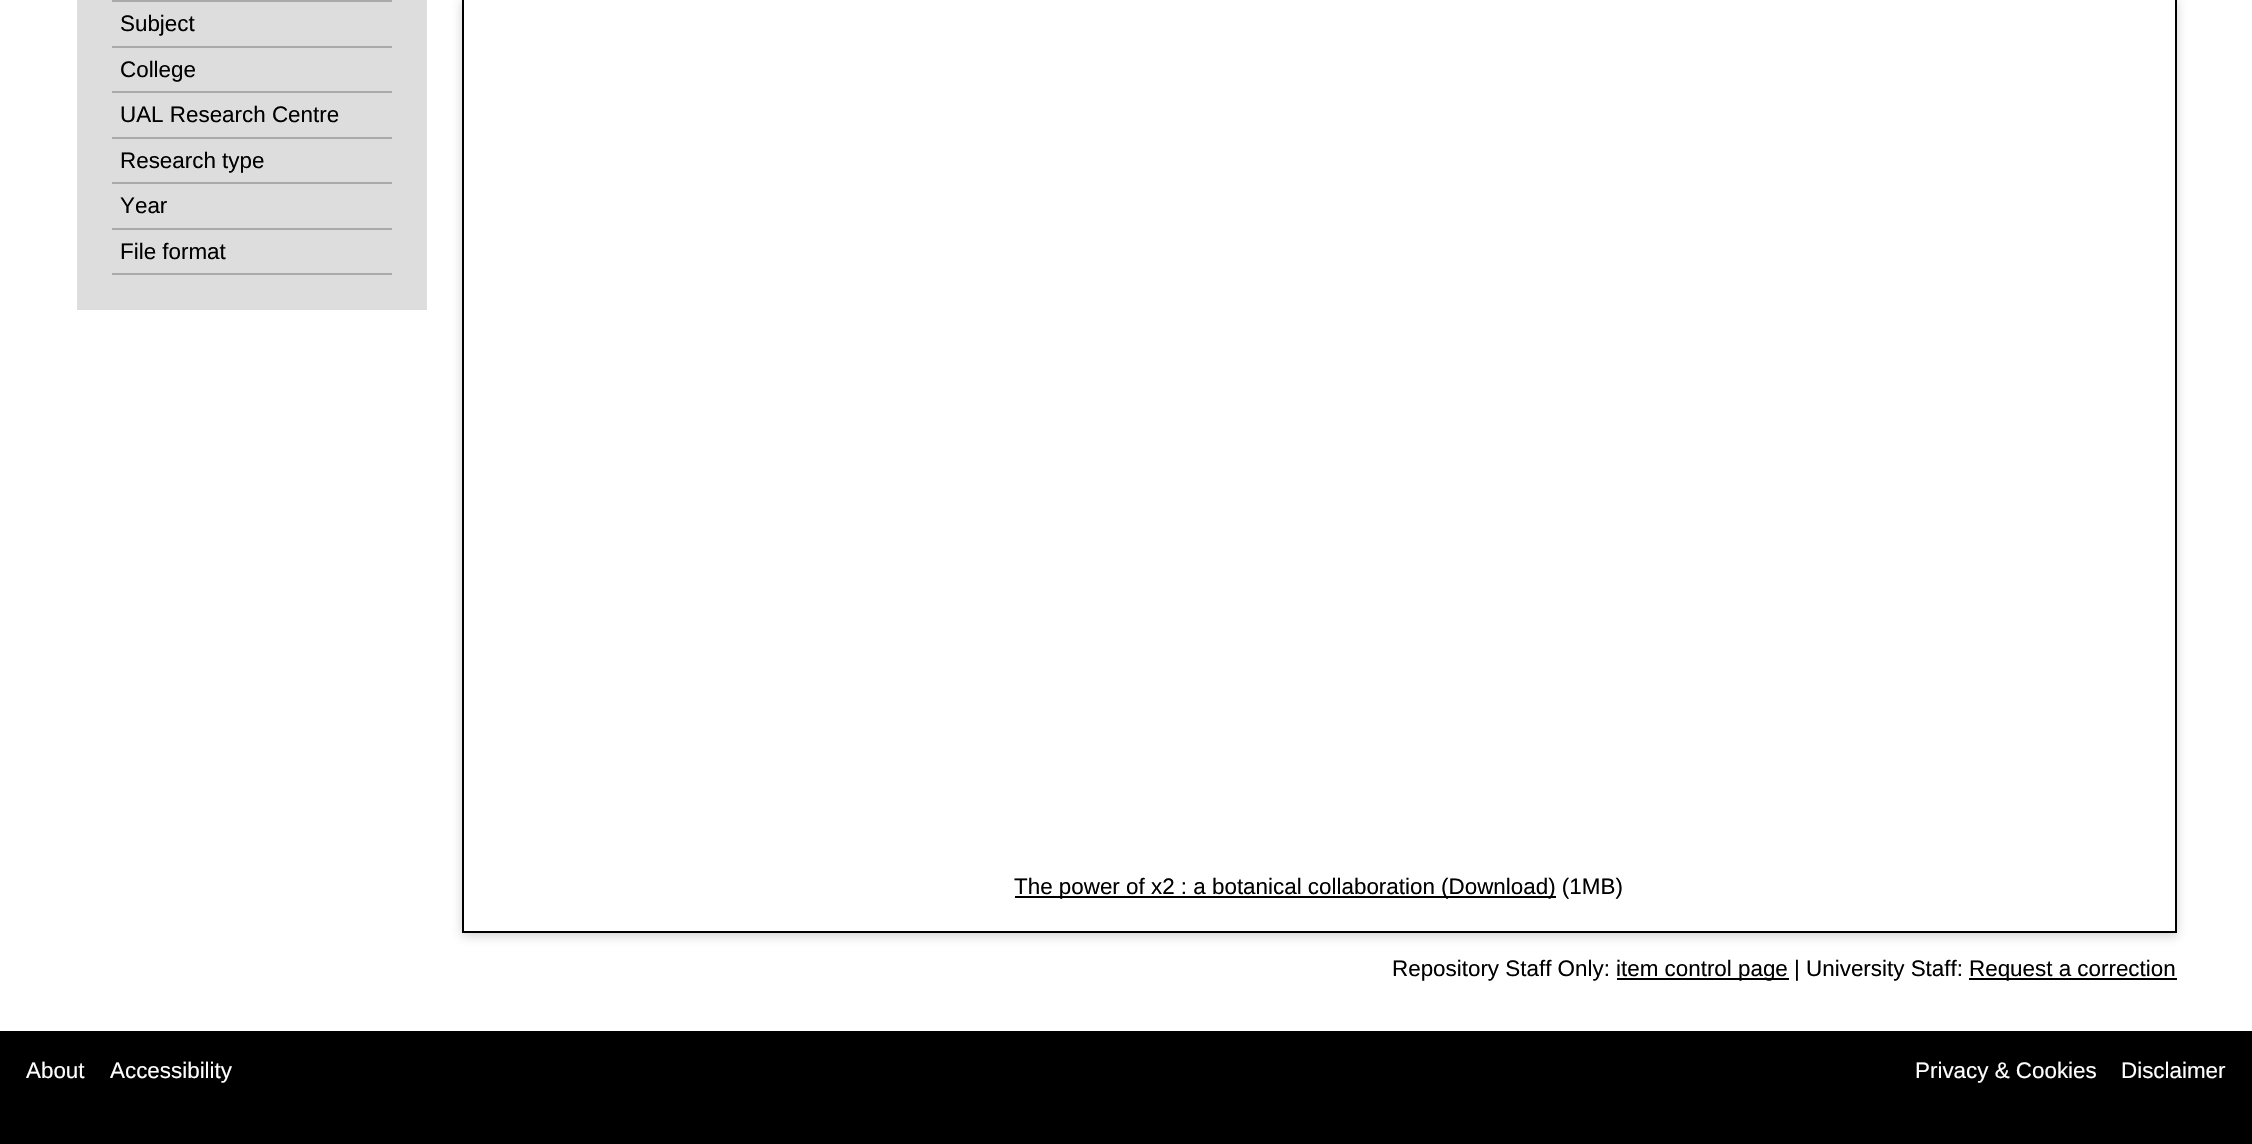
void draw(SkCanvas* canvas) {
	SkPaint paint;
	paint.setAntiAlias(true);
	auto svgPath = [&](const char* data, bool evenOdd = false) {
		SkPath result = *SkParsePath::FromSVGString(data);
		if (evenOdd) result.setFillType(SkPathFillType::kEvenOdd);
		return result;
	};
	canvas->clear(0xffffffff);
	paint.setColor(0xffdddddd);
	canvas->drawRect(SkRect::MakeXYWH(77, 0, 350, 310), paint);
	paint.setColor(0xffaaaaaa);
	canvas->drawRect(SkRect::MakeXYWH(112, 0, 280, 2), paint);
	canvas->drawRect(SkRect::MakeXYWH(112, 46, 280, 2), paint);
	SkFont f1(fontMgr->matchFamilyStyle("Liberation Sans", SkFontStyle::Normal()), 22.4);
	f1.setSubpixel(true);
	paint.setColor(0xff000000);
	canvas->drawString("Subject", 120, 31, f1, paint);
	paint.setColor(0xffaaaaaa);
	canvas->drawRect(SkRect::MakeXYWH(112, 91, 280, 2), paint);
	paint.setColor(0xff000000);
	canvas->drawString("College", 120, 77, f1, paint);
	paint.setColor(0xffaaaaaa);
	canvas->drawRect(SkRect::MakeXYWH(112, 137, 280, 2), paint);
	paint.setColor(0xff000000);
	canvas->drawString("UAL Research Centre", 120, 122, f1, paint);
	paint.setColor(0xffaaaaaa);
	canvas->drawRect(SkRect::MakeXYWH(112, 182, 280, 2), paint);
	paint.setColor(0xff000000);
	canvas->drawString("Research type", 120, 168, f1, paint);
	paint.setColor(0xffaaaaaa);
	canvas->drawRect(SkRect::MakeXYWH(112, 228, 280, 2), paint);
	paint.setColor(0xff000000);
	canvas->drawString("Year", 120, 213, f1, paint);
	paint.setColor(0xffaaaaaa);
	canvas->drawRect(SkRect::MakeXYWH(112, 273, 280, 2), paint);
	paint.setColor(0xff000000);
	canvas->drawString("File format", 120, 259, f1, paint);
	canvas->save();
	canvas->clipPath(svgPath("M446 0H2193V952H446ZM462-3H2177V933H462Z", true), true);
	paint.setColor(0x4d646464);
	paint.setMaskFilter(SkMaskFilter::MakeBlur(kNormal_SkBlurStyle, 5));
	canvas->drawRect(SkRect::MakeXYWH(462, 0, 1715, 936), paint);
	paint.setMaskFilter(nullptr);
	canvas->restore();
	paint.setColor(0xff000000);
	canvas->drawRect(SkRect::MakeXYWH(2175, 0, 2, 933), paint);
	canvas->drawRect(SkRect::MakeXYWH(462, 931, 1715, 2), paint);
	canvas->drawRect(SkRect::MakeXYWH(462, 0, 2, 933), paint);
	canvas->drawRect(SkRect::MakeXYWH(1015, 896, 541, 2), paint);
	canvas->drawString("The power of x2 : a botanical collaboration (Download) (1MB)", 1014, 894, f1, paint);
	canvas->drawString("Repository Staff Only:", 1392, 976, f1, paint);
	canvas->drawRect(SkRect::MakeXYWH(1617, 978, 172, 2), paint);
	canvas->drawString("item control page | University Staff:", 1616, 976, f1, paint);
	canvas->drawRect(SkRect::MakeXYWH(1969, 978, 208, 2), paint);
	canvas->drawString("Request a correction", 1969, 976, f1, paint);
	canvas->drawRect(SkRect::MakeXYWH(0, 1031, 2252, 113), paint);
	paint.setColor(0xffffffff);
	canvas->drawString("About", 26, 1078, f1, paint);
	canvas->drawString("Accessibility", 110, 1078, f1, paint);
	canvas->drawString("Privacy & Cookies", 1915, 1078, f1, paint);
	canvas->drawString("Disclaimer", 2121, 1078, f1, paint);
}
